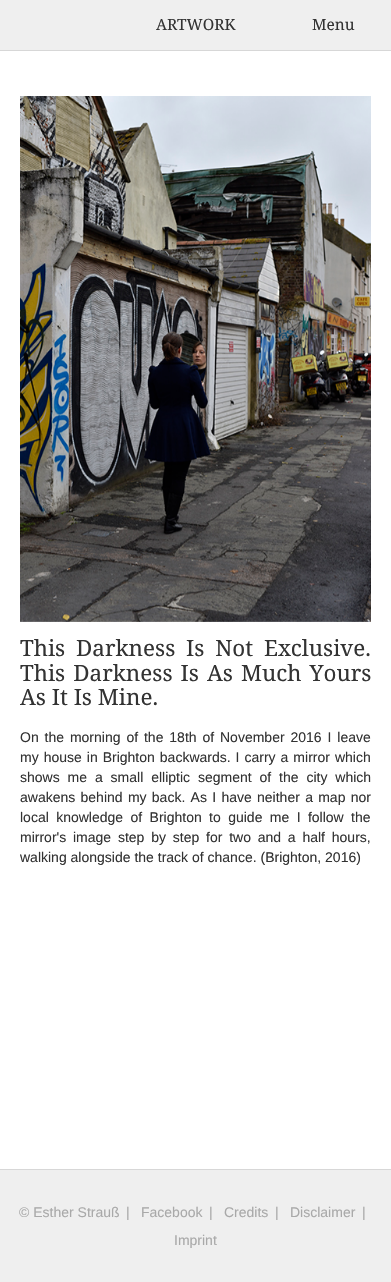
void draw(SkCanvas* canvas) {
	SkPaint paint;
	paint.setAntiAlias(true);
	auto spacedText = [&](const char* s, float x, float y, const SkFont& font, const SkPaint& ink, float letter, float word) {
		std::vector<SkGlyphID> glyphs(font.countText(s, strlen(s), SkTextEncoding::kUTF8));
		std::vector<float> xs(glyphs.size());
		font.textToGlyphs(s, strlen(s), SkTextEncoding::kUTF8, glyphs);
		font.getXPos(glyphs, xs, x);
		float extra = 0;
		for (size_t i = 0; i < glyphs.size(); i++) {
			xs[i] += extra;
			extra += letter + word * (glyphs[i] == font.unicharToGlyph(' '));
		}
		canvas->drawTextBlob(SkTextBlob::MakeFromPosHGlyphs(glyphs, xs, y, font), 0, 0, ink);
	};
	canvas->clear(0xffffffff);
	paint.setColor(0xffefefef);
	canvas->drawRect(SkRect::MakeXYWH(0, 0, 391, 50), paint);
	paint.setColor(0xffd7d7d7);
	canvas->drawRect(SkRect::MakeXYWH(0, 50, 391, 1), paint);
	SkFont f1(fontMgr->matchFamilyStyle("Noto Serif", SkFontStyle::Normal()), 15.5);
	f1.setSubpixel(true);
	paint.setColor(0xff333333);
	canvas->drawString("ARTWORK", 156, 30, f1, paint);
	canvas->drawString("Menu", 312, 30, f1, paint);
	canvas->drawImageRect(SkImages::DeferredFromEncodedData(SkData::MakeFromFileName("img1.png")), SkRect::MakeXYWH(20, 96, 351, 526), SkSamplingOptions());
	SkFont f2(fontMgr->matchFamilyStyle("Noto Serif", SkFontStyle::Normal()), 22.4);
	f2.setSubpixel(true);
	spacedText("This Darkness Is Not Exclusive.", 20, 656, f2, paint, 0, 5);
	spacedText("This Darkness Is As Much Yours", 20, 681, f2, paint, 0, 2.25);
	canvas->drawString("As It Is Mine.", 20, 705, f2, paint);
	SkFont f3(fontMgr->matchFamilyStyle("Liberation Sans", SkFontStyle::Normal()), 14);
	f3.setSubpixel(true);
	spacedText("On the morning of the 18th of November 2016 I leave", 20, 742, f3, paint, 0, 2);
	spacedText("my house in Brighton backwards. I carry a mirror which", 20, 762, f3, paint, 0, 1.1);
	spacedText("shows me a small elliptic segment of the city which", 20, 782, f3, paint, 0, 4);
	spacedText("awakens behind my back. As I have neither a map nor", 20, 802, f3, paint, 0, 1.4);
	spacedText("local knowledge of Brighton to guide me I follow the", 20, 822, f3, paint, 0, 3.5);
	spacedText("mirror's image step by step for two and a half hours,", 20, 842, f3, paint, 0, 2.9);
	canvas->drawString("walking alongside the track of chance. (Brighton, 2016)", 20, 862, f3, paint);
	paint.setColor(0xffefefef);
	canvas->drawRect(SkRect::MakeXYWH(0, 1170, 391, 112), paint);
	paint.setColor(0xffd7d7d7);
	canvas->drawRect(SkRect::MakeXYWH(0, 1169, 391, 1), paint);
	paint.setColor(0xffa9a9a9);
	canvas->drawString("© Esther Strauß", 19, 1217, f3, paint);
	canvas->drawString("|", 126, 1217, f3, paint);
	canvas->drawString("Facebook", 141, 1217, f3, paint);
	canvas->drawString("|", 209, 1217, f3, paint);
	canvas->drawString("Credits", 224, 1217, f3, paint);
	canvas->drawString("|", 275, 1217, f3, paint);
	canvas->drawString("Disclaimer", 290, 1217, f3, paint);
	canvas->drawString("|", 362, 1217, f3, paint);
	canvas->drawString("Imprint", 174, 1245, f3, paint);
}
